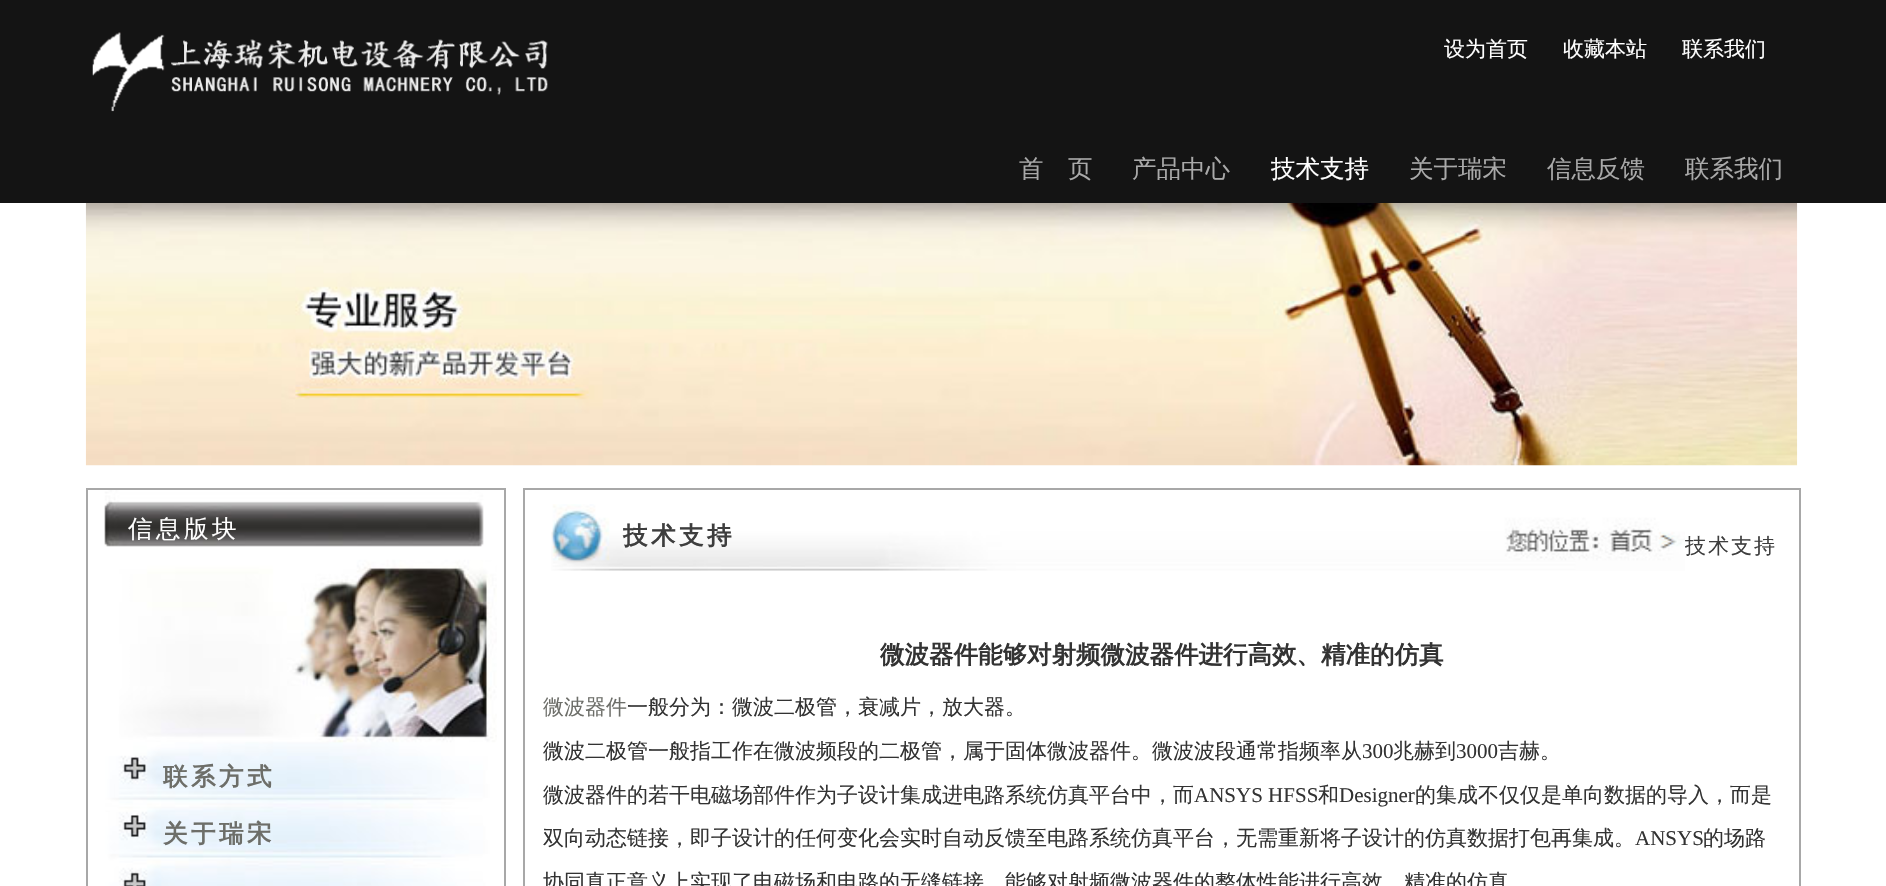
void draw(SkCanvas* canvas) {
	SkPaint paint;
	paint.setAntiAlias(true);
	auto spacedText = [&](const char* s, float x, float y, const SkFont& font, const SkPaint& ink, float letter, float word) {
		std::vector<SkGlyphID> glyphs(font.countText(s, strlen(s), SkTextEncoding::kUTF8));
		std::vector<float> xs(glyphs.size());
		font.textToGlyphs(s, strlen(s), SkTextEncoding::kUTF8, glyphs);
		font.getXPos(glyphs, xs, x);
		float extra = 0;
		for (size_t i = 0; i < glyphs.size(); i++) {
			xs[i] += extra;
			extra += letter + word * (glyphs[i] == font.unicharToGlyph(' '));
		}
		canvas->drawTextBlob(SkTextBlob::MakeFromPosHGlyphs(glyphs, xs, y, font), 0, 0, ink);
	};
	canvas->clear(0xffffffff);
	paint.setColor(0xff141414);
	canvas->drawRect(SkRect::MakeXYWH(0, 0, 1886, 203), paint);
	canvas->drawImageRect(SkImages::DeferredFromEncodedData(SkData::MakeFromFileName("img1.png")), SkRect::MakeXYWH(92, 32, 456, 80), SkSamplingOptions());
	SkFont f1(fontMgr->matchFamilyStyle("WenQuanYi Zen Hei", SkFontStyle(500, SkFontStyle::kNormal_Width, SkFontStyle::kUpright_Slant)), 21);
	f1.setSubpixel(true);
	paint.setColor(0xffffffff);
	canvas->drawString("设为首页", 1444, 56, f1, paint);
	canvas->drawString("收藏本站", 1563, 56, f1, paint);
	canvas->drawString("联系我们", 1682, 56, f1, paint);
	SkFont f2(fontMgr->matchFamilyStyle("WenQuanYi Zen Hei", SkFontStyle(500, SkFontStyle::kNormal_Width, SkFontStyle::kUpright_Slant)), 24.5);
	f2.setSubpixel(true);
	paint.setColor(0xffa9a9a9);
	canvas->drawString("首　页", 1019, 177, f2, paint);
	canvas->drawString("产品中心", 1132, 177, f2, paint);
	paint.setColor(0xffffffff);
	canvas->drawString("技术支持", 1271, 177, f2, paint);
	paint.setColor(0xffa9a9a9);
	canvas->drawString("关于瑞宋", 1409, 177, f2, paint);
	canvas->drawString("信息反馈", 1547, 177, f2, paint);
	canvas->drawString("联系我们", 1685, 177, f2, paint);
	canvas->drawImageRect(SkImages::DeferredFromEncodedData(SkData::MakeFromFileName("img2.png")), SkRect::MakeXYWH(85, 203, 1713, 263), SkSamplingOptions());
	canvas->drawImageRect(SkImages::DeferredFromEncodedData(SkData::MakeFromFileName("img3.png")), SkRect::MakeXYWH(88, 490, 409, 396), SkSamplingOptions());
	paint.setStroke(true);
	paint.setStrokeWidth(2);
	paint.setColor(0xffa8a8a8);
	canvas->drawRect(SkRect::MakeXYWH(87, 489, 418, 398), paint);
	paint.setStroke(false);
	paint.setColor(0xffffffff);
	spacedText("信息版块", 128, 537, f2, paint, 3.5, 0);
	SkFont f3(fontMgr->matchFamilyStyle("WenQuanYi Zen Hei", SkFontStyle::Bold()), 24.5);
	f3.setSubpixel(true);
	paint.setColor(0xff6d6e69);
	spacedText("联系方式", 163, 785, f3, paint, 3.5, 0);
	spacedText("关于瑞宋", 163, 842, f3, paint, 3.5, 0);
	paint.setStroke(true);
	paint.setColor(0xffa8a8a8);
	canvas->drawRect(SkRect::MakeXYWH(524, 489, 1276, 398), paint);
	canvas->drawImageRect(SkImages::DeferredFromEncodedData(SkData::MakeFromFileName("img4.png")), SkRect::MakeXYWH(551, 504, 1134, 67), SkSamplingOptions());
	paint.setStroke(false);
	paint.setColor(0xff3e3e3e);
	spacedText("技术支持", 623, 544, f3, paint, 3.5, 0);
	spacedText("技术支持", 1685, 553, f1, paint, 2, 0);
	paint.setColor(0xff333333);
	canvas->drawString("微波器件能够对射频微波器件进行高效、精准的仿真", 880, 663, f3, paint);
	paint.setColor(0xff6d6e69);
	canvas->drawString("微波器件", 543, 714, f1, paint);
	paint.setColor(0xff333333);
	canvas->drawString("一般分为：微波二极管，衰减片，放大器。", 627, 714, f1, paint);
	canvas->drawString("微波二极管一般指工作在微波频段的二极管，属于固体微波器件。微波波段通常指频率从", 543, 758, f1, paint);
	SkFont f4(fontMgr->matchFamilyStyle("Liberation Serif", SkFontStyle::Normal()), 21);
	f4.setSubpixel(true);
	canvas->drawString("300", 1362, 758, f4, paint);
	canvas->drawString("兆赫到", 1393, 758, f1, paint);
	canvas->drawString("3000", 1456, 758, f4, paint);
	canvas->drawString("吉赫。", 1498, 758, f1, paint);
	canvas->drawString("微波器件的若干电磁场部件作为子设计集成进电路系统仿真平台中，而", 543, 802, f1, paint);
	canvas->drawString("ANSYS HFSS", 1194, 802, f4, paint);
	canvas->drawString("和", 1318, 802, f1, paint);
	canvas->drawString("Designer", 1339, 802, f4, paint);
	canvas->drawString("的集成不仅仅是单向数据的导入，而是", 1415, 802, f1, paint);
	canvas->drawString("双向动态链接，即子设计的任何变化会实时自动反馈至电路系统仿真平台，无需重新将子设计的仿真数据打包再集成。", 543, 845, f1, paint);
	canvas->drawString("ANSYS", 1635, 845, f4, paint);
	canvas->drawString("的场路", 1703, 845, f1, paint);
	canvas->drawString("协同真正意义上实现了电磁场和电路的无缝链接，能够对射频微波器件的整体性能进行高效、精准的仿真", 543, 889, f1, paint);
}
